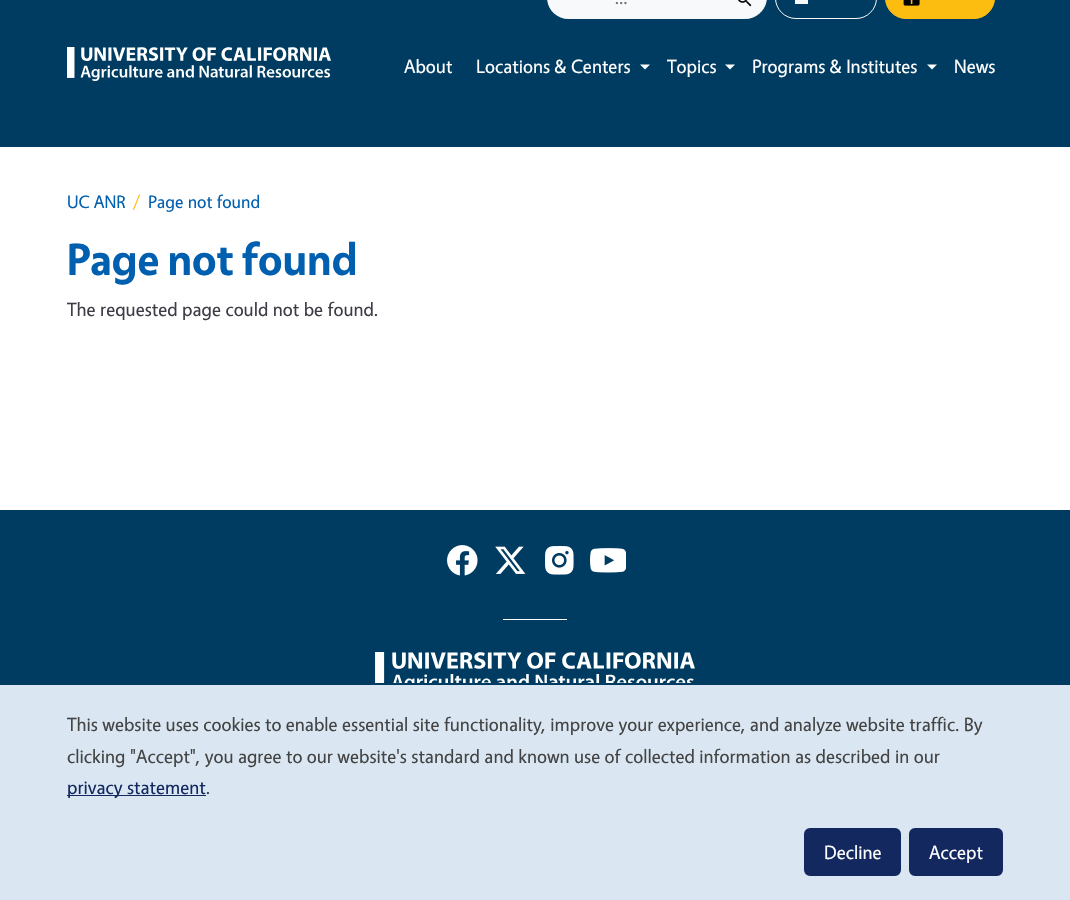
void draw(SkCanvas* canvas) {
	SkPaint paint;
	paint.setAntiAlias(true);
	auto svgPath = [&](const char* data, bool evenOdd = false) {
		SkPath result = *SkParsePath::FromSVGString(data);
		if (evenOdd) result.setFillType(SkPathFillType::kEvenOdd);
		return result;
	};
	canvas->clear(0xff003c61);
	paint.setColor(0xfff8f9fa);
	canvas->drawPath(svgPath("M568.5-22H723V19H568.5C556.5 19 547 9.5 547-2.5V-.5C547-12.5 556.5-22 568.5-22Z"), paint);
	SkFont f1(fontMgr->matchFamilyStyle("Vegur", SkFontStyle::Normal()), 19.2);
	f1.setSubpixel(true);
	paint.setColor(0xff6c757d);
	canvas->drawString("...", 615, 4, f1, paint);
	paint.setColor(0xfff8f9fa);
	canvas->drawPath(svgPath("M722.5-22.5H745.5C757-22.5 766.5-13 766.5-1.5V-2.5C766.5 9 757 18.5 745.5 18.5H722.5Z"), paint);
	paint.setStroke(true);
	paint.setStrokeWidth(1);
	canvas->drawPath(svgPath("M722.5-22.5H745.5C757-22.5 766.5-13 766.5-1.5V-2.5C766.5 9 757 18.5 745.5 18.5H722.5Z"), paint);
	canvas->drawImageRect(SkImages::DeferredFromEncodedData(SkData::MakeFromFileName("img1.png")), SkRect::MakeXYWH(738, 0, 14, 7), SkSamplingOptions());
	canvas->drawRoundRect(SkRect::MakeXYWH(775.5, -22.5, 101, 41), 21, 21, paint);
	paint.setStroke(false);
	canvas->drawRect(SkRect::MakeXYWH(795, 0, 13, 4), paint);
	paint.setColor(0xfffdbd10);
	canvas->drawRoundRect(SkRect::MakeXYWH(885.5, -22.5, 109, 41), 21, 21, paint);
	paint.setStroke(true);
	canvas->drawRoundRect(SkRect::MakeXYWH(885.5, -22.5, 109, 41), 21, 21, paint);
	canvas->drawImageRect(SkImages::DeferredFromEncodedData(SkData::MakeFromFileName("img2.png")), SkRect::MakeXYWH(903, 0, 17, 6), SkSamplingOptions());
	canvas->drawImageRect(SkImages::DeferredFromEncodedData(SkData::MakeFromFileName("img3.png")), SkRect::MakeXYWH(67, 47, 264, 34), SkSamplingOptions());
	paint.setStroke(false);
	paint.setColor(0xffffffff);
	canvas->drawString("About", 404, 73, f1, paint);
	canvas->drawString("Locations & Centers", 476, 73, f1, paint);
	canvas->drawPath(svgPath("M640 64.5H650L645 69.5Z"), paint);
	canvas->drawString("Topics", 667, 73, f1, paint);
	canvas->drawPath(svgPath("M725 64.5H735L730 69.5Z"), paint);
	canvas->drawString("Programs & Institutes", 752, 73, f1, paint);
	canvas->drawPath(svgPath("M927 64.5H937L932 69.5Z"), paint);
	canvas->drawString("News", 954, 73, f1, paint);
	canvas->drawRect(SkRect::MakeXYWH(0, 147, 1070, 363), paint);
	SkFont f2(fontMgr->matchFamilyStyle("Vegur", SkFontStyle::Normal()), 18);
	f2.setSubpixel(true);
	paint.setColor(0xff005fae);
	canvas->drawString("UC ANR", 67, 208, f2, paint);
	paint.setColor(0xfffdbd10);
	canvas->drawString("/", 133, 208, f2, paint);
	paint.setColor(0xff005fae);
	canvas->drawString("Page not found", 148, 208, f2, paint);
	SkFont f3(fontMgr->matchFamilyStyle("Vegur", SkFontStyle::Bold()), 45.25);
	f3.setSubpixel(true);
	canvas->drawString("Page not found", 67, 275, f3, paint);
	paint.setColor(0xff3d3d47);
	canvas->drawString("The requested page could not be found.", 67, 316, f1, paint);
	canvas->drawImageRect(SkImages::DeferredFromEncodedData(SkData::MakeFromFileName("img4.png")), SkRect::MakeXYWH(447, 545, 31, 31), SkSamplingOptions());
	canvas->drawImageRect(SkImages::DeferredFromEncodedData(SkData::MakeFromFileName("img5.png")), SkRect::MakeXYWH(495, 546, 31, 28), SkSamplingOptions());
	canvas->drawImageRect(SkImages::DeferredFromEncodedData(SkData::MakeFromFileName("img6.png")), SkRect::MakeXYWH(545, 546, 29, 29), SkSamplingOptions());
	canvas->drawImageRect(SkImages::DeferredFromEncodedData(SkData::MakeFromFileName("img7.png")), SkRect::MakeXYWH(590, 548, 36, 25), SkSamplingOptions());
	paint.setColor(0xffffffff);
	canvas->drawRect(SkRect::MakeXYWH(503, 619, 64, 1), paint);
	canvas->drawImageRect(SkImages::DeferredFromEncodedData(SkData::MakeFromFileName("img8.png")), SkRect::MakeXYWH(375, 652, 320, 31), SkSamplingOptions());
	paint.setColor(0xffdae7f3);
	canvas->drawRect(SkRect::MakeXYWH(0, 685, 1070, 215), paint);
	paint.setColor(0xff444444);
	canvas->drawString("This website uses cookies to enable essential site functionality, improve your experience, and analyze website traffic. By", 67, 731, f1, paint);
	canvas->drawString("clicking \"Accept\", you agree to our website's standard and known use of collected information as described in our", 67, 763, f1, paint);
	paint.setColor(0xff12285f);
	canvas->drawRect(SkRect::MakeXYWH(67, 795, 139, 1), paint);
	canvas->drawString("privacy statement", 67, 794, f1, paint);
	paint.setColor(0xff444444);
	canvas->drawString(".", 206, 794, f1, paint);
	paint.setColor(0xff12285f);
	canvas->drawRoundRect(SkRect::MakeXYWH(805.5, 829.5, 94, 45), 4.5, 4.5, paint);
	paint.setStroke(true);
	paint.setStrokeWidth(3);
	canvas->drawRoundRect(SkRect::MakeXYWH(805.5, 829.5, 94, 45), 4.5, 4.5, paint);
	paint.setStroke(false);
	paint.setColor(0xffffffff);
	canvas->drawString("Decline", 824, 859, f1, paint);
	paint.setColor(0xff12285f);
	canvas->drawRoundRect(SkRect::MakeXYWH(910.5, 829.5, 91, 45), 4.5, 4.5, paint);
	paint.setStroke(true);
	canvas->drawRoundRect(SkRect::MakeXYWH(910.5, 829.5, 91, 45), 4.5, 4.5, paint);
	paint.setStroke(false);
	paint.setColor(0xffffffff);
	canvas->drawString("Accept", 929, 859, f1, paint);
}
